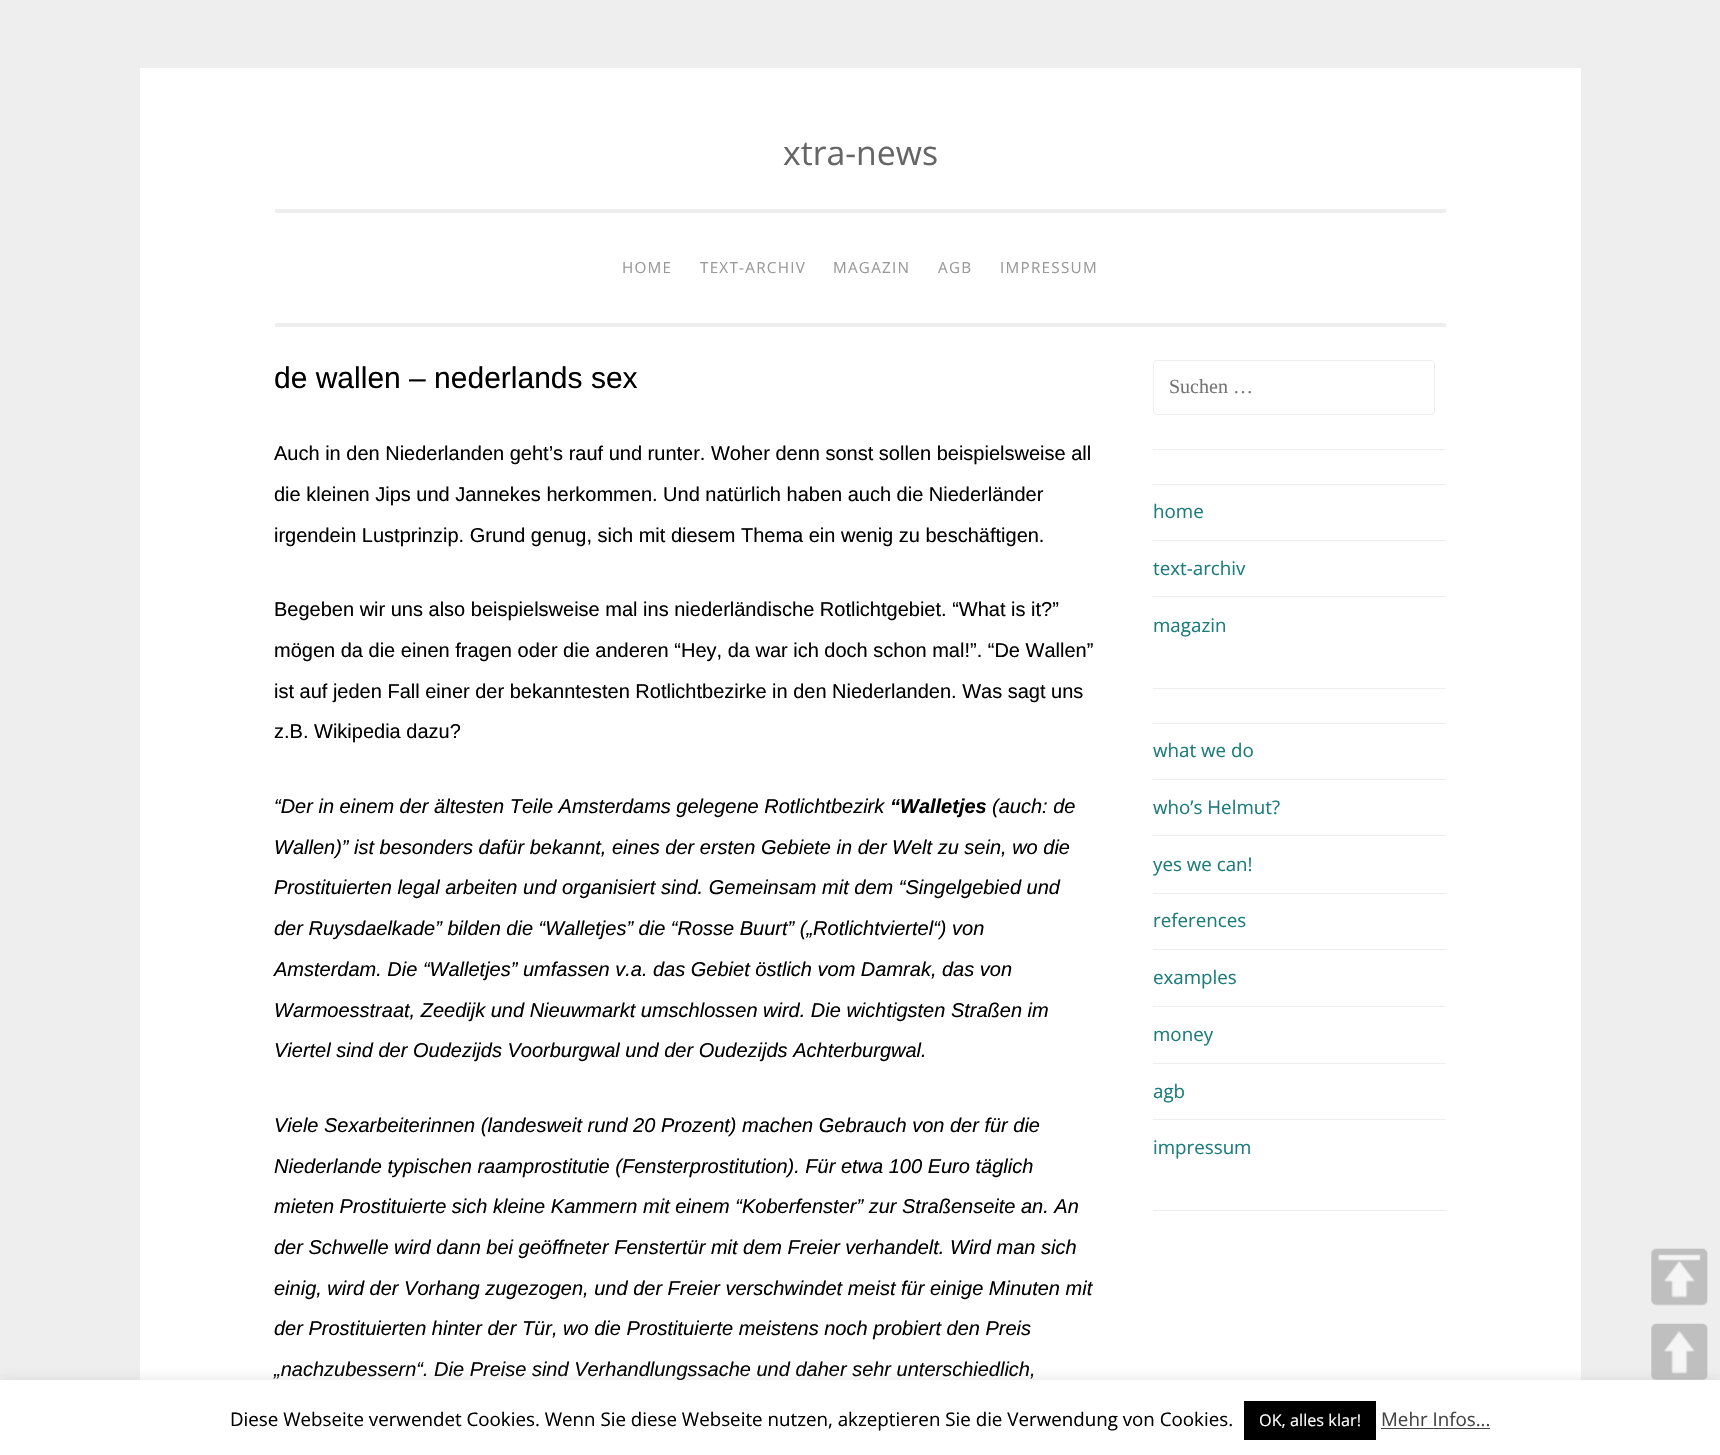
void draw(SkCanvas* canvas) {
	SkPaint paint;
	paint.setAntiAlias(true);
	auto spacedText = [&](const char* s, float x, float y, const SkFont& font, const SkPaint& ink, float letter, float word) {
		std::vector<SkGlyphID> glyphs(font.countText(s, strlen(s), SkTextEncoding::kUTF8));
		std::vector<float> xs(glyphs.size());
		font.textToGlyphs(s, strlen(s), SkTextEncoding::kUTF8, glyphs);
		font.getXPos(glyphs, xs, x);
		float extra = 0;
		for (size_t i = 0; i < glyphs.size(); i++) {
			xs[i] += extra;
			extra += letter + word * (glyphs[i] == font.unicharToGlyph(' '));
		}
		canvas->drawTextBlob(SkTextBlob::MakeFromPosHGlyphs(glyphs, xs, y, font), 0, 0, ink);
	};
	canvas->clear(0xffeeeeee);
	paint.setColor(0xffffffff);
	canvas->drawRect(SkRect::MakeXYWH(140, 68, 1441, 1312), paint);
	paint.setColor(0xffeeeeee);
	canvas->drawRect(SkRect::MakeXYWH(275, 323, 1171, 4), paint);
	SkFont f1(fontMgr->matchFamilyStyle("Open Sans", SkFontStyle::Normal()), 33.75);
	f1.setSubpixel(true);
	paint.setColor(0xff666666);
	canvas->drawString("xtra-news", 783, 165, f1, paint);
	paint.setColor(0xffeeeeee);
	canvas->drawRect(SkRect::MakeXYWH(275, 209, 1171, 4), paint);
	SkFont f2(fontMgr->matchFamilyStyle("Open Sans", SkFontStyle::Normal()), 15.25);
	f2.setSubpixel(true);
	paint.setColor(0xff999999);
	spacedText("HOME", 622, 273, f2, paint, 1.25, 0);
	spacedText("TEXT-ARCHIV", 700, 273, f2, paint, 1.25, 0);
	spacedText("MAGAZIN", 833, 273, f2, paint, 1.25, 0);
	spacedText("AGB", 938, 273, f2, paint, 1.25, 0);
	spacedText("IMPRESSUM", 1000, 273, f2, paint, 1.25, 0);
	SkFont f3(fontMgr->matchFamilyStyle("Liberation Sans", SkFontStyle::Normal()), 30);
	f3.setSubpixel(true);
	paint.setColor(0xff000000);
	canvas->drawString("de wallen – nederlands sex", 274, 388, f3, paint);
	SkFont f4(fontMgr->matchFamilyStyle("Liberation Sans", SkFontStyle::Normal()), 20);
	f4.setSubpixel(true);
	canvas->drawString("Auch in den Niederlanden geht’s rauf und runter. Woher denn sonst sollen beispielsweise all", 274, 460, f4, paint);
	canvas->drawString("die kleinen Jips und Jannekes herkommen. Und natürlich haben auch die Niederländer", 274, 501, f4, paint);
	canvas->drawString("irgendein Lustprinzip. Grund genug, sich mit diesem Thema ein wenig zu beschäftigen.", 274, 542, f4, paint);
	canvas->drawString("Begeben wir uns also beispielsweise mal ins niederländische Rotlichtgebiet. “What is it?”", 274, 616, f4, paint);
	canvas->drawString("mögen da die einen fragen oder die anderen “Hey, da war ich doch schon mal!”. “De Wallen”", 274, 657, f4, paint);
	canvas->drawString("ist auf jeden Fall einer der bekanntesten Rotlichtbezirke in den Niederlanden. Was sagt uns", 274, 698, f4, paint);
	canvas->drawString("z.B. Wikipedia dazu?", 274, 738, f4, paint);
	SkFont f5(fontMgr->matchFamilyStyle("Liberation Sans", SkFontStyle::Italic()), 20);
	f5.setSubpixel(true);
	canvas->drawString("“Der in einem der ältesten Teile Amsterdams gelegene Rotlichtbezirk", 274, 813, f5, paint);
	SkFont f6(fontMgr->matchFamilyStyle("Liberation Sans", SkFontStyle::BoldItalic()), 20);
	f6.setSubpixel(true);
	canvas->drawString("“Walletjes", 890, 813, f6, paint);
	canvas->drawString("(auch: de", 992, 813, f5, paint);
	canvas->drawString("Wallen)” ist besonders dafür bekannt, eines der ersten Gebiete in der Welt zu sein, wo die", 274, 854, f5, paint);
	canvas->drawString("Prostituierten legal arbeiten und organisiert sind. Gemeinsam mit dem “Singelgebied und", 274, 894, f5, paint);
	canvas->drawString("der Ruysdaelkade” bilden die “Walletjes” die “Rosse Buurt” („Rotlichtviertel“) von", 274, 935, f5, paint);
	canvas->drawString("Amsterdam. Die “Walletjes” umfassen v.a. das Gebiet östlich vom Damrak, das von", 274, 976, f5, paint);
	canvas->drawString("Warmoesstraat, Zeedijk und Nieuwmarkt umschlossen wird. Die wichtigsten Straßen im", 274, 1017, f5, paint);
	canvas->drawString("Viertel sind der Oudezijds Voorburgwal und der Oudezijds Achterburgwal.", 274, 1057, f5, paint);
	canvas->drawString("Viele Sexarbeiterinnen (landesweit rund 20 Prozent) machen Gebrauch von der für die", 274, 1132, f5, paint);
	canvas->drawString("Niederlande typischen raamprostitutie (Fensterprostitution). Für etwa 100 Euro täglich", 274, 1173, f5, paint);
	canvas->drawString("mieten Prostituierte sich kleine Kammern mit einem “Koberfenster” zur Straßenseite an. An", 274, 1213, f5, paint);
	canvas->drawString("der Schwelle wird dann bei geöffneter Fenstertür mit dem Freier verhandelt. Wird man sich", 274, 1254, f5, paint);
	canvas->drawString("einig, wird der Vorhang zugezogen, und der Freier verschwindet meist für einige Minuten mit", 274, 1295, f5, paint);
	canvas->drawString("der Prostituierten hinter der Tür, wo die Prostituierte meistens noch probiert den Preis", 274, 1335, f5, paint);
	canvas->drawString("„nachzubessern“. Die Preise sind Verhandlungssache und daher sehr unterschiedlich,", 274, 1376, f5, paint);
	paint.setColor(0xffeeeeee);
	canvas->drawRect(SkRect::MakeXYWH(1153, 449, 293, 1), paint);
	paint.setStroke(true);
	paint.setStrokeWidth(1);
	canvas->drawRoundRect(SkRect::MakeXYWH(1153.5, 360.5, 281, 54), 3.5, 3.5, paint);
	SkFont f7(fontMgr->matchFamilyStyle("Liberation Serif", SkFontStyle::Normal()), 20);
	f7.setSubpixel(true);
	paint.setStroke(false);
	paint.setColor(0xff757575);
	canvas->drawString("Suchen …", 1169, 393, f7, paint);
	paint.setColor(0xffeeeeee);
	canvas->drawRect(SkRect::MakeXYWH(1153, 688, 293, 1), paint);
	canvas->drawRect(SkRect::MakeXYWH(1153, 484, 293, 1), paint);
	SkFont f8(fontMgr->matchFamilyStyle("Open Sans", SkFontStyle::Normal()), 18.75);
	f8.setSubpixel(true);
	paint.setColor(0xff1c7c7c);
	canvas->drawString("home", 1153, 518, f8, paint);
	paint.setColor(0xffeeeeee);
	canvas->drawRect(SkRect::MakeXYWH(1153, 540, 293, 1), paint);
	paint.setColor(0xff1c7c7c);
	canvas->drawString("text-archiv", 1153, 575, f8, paint);
	paint.setColor(0xffeeeeee);
	canvas->drawRect(SkRect::MakeXYWH(1153, 596, 293, 1), paint);
	paint.setColor(0xff1c7c7c);
	canvas->drawString("magazin", 1153, 632, f8, paint);
	paint.setColor(0xffeeeeee);
	canvas->drawRect(SkRect::MakeXYWH(1153, 1210, 293, 1), paint);
	canvas->drawRect(SkRect::MakeXYWH(1153, 723, 293, 1), paint);
	paint.setColor(0xff1c7c7c);
	canvas->drawString("what we do", 1153, 757, f8, paint);
	paint.setColor(0xffeeeeee);
	canvas->drawRect(SkRect::MakeXYWH(1153, 779, 293, 1), paint);
	paint.setColor(0xff1c7c7c);
	canvas->drawString("who’s Helmut?", 1153, 814, f8, paint);
	paint.setColor(0xffeeeeee);
	canvas->drawRect(SkRect::MakeXYWH(1153, 835, 293, 1), paint);
	paint.setColor(0xff1c7c7c);
	canvas->drawString("yes we can!", 1153, 871, f8, paint);
	paint.setColor(0xffeeeeee);
	canvas->drawRect(SkRect::MakeXYWH(1153, 893, 293, 1), paint);
	paint.setColor(0xff1c7c7c);
	canvas->drawString("references", 1153, 927, f8, paint);
	paint.setColor(0xffeeeeee);
	canvas->drawRect(SkRect::MakeXYWH(1153, 949, 293, 1), paint);
	paint.setColor(0xff1c7c7c);
	canvas->drawString("examples", 1153, 984, f8, paint);
	paint.setColor(0xffeeeeee);
	canvas->drawRect(SkRect::MakeXYWH(1153, 1006, 293, 1), paint);
	paint.setColor(0xff1c7c7c);
	canvas->drawString("money", 1153, 1041, f8, paint);
	paint.setColor(0xffeeeeee);
	canvas->drawRect(SkRect::MakeXYWH(1153, 1063, 293, 1), paint);
	paint.setColor(0xff1c7c7c);
	canvas->drawString("agb", 1153, 1098, f8, paint);
	paint.setColor(0xffeeeeee);
	canvas->drawRect(SkRect::MakeXYWH(1153, 1119, 293, 1), paint);
	paint.setColor(0xff1c7c7c);
	canvas->drawString("impressum", 1153, 1154, f8, paint);
	paint.setColor(0xfff3f3f3);
	canvas->drawRoundRect(SkRect::MakeXYWH(1651, 1249, 57, 56), 5, 5, paint);
	canvas->drawImageRect(SkImages::DeferredFromEncodedData(SkData::MakeFromFileName("img1.png")), SkRect::MakeXYWH(1651, 1248, 57, 58), SkSamplingOptions());
	canvas->drawRoundRect(SkRect::MakeXYWH(1651, 1324, 57, 56), 5, 5, paint);
	canvas->drawImageRect(SkImages::DeferredFromEncodedData(SkData::MakeFromFileName("img2.png")), SkRect::MakeXYWH(1651, 1323, 57, 57), SkSamplingOptions());
	paint.setColor(0x4dacabab);
	paint.setMaskFilter(SkMaskFilter::MakeBlur(kNormal_SkBlurStyle, 6));
	canvas->drawRect(SkRect::MakeXYWH(0, 1379, 1720, 75), paint);
	paint.setMaskFilter(nullptr);
	paint.setColor(0xffffffff);
	canvas->drawRect(SkRect::MakeXYWH(0, 1380, 1720, 75), paint);
	paint.setColor(0xff000000);
	canvas->drawString("Diese Webseite verwendet Cookies. Wenn Sie diese Webseite nutzen, akzeptieren Sie die Verwendung von Cookies.", 230, 1426, f8, paint);
	canvas->drawRect(SkRect::MakeXYWH(1244, 1401, 132, 39), paint);
	SkFont f9(fontMgr->matchFamilyStyle("Open Sans", SkFontStyle::Normal()), 16.25);
	f9.setSubpixel(true);
	paint.setColor(0xffffffff);
	canvas->drawString("OK, alles klar!", 1259, 1426, f9, paint);
	paint.setColor(0xff444444);
	canvas->drawString("Mehr Infos...", 1381, 1426, f8, paint);
	canvas->drawRect(SkRect::MakeXYWH(1381, 1428, 109, 1), paint);
}
